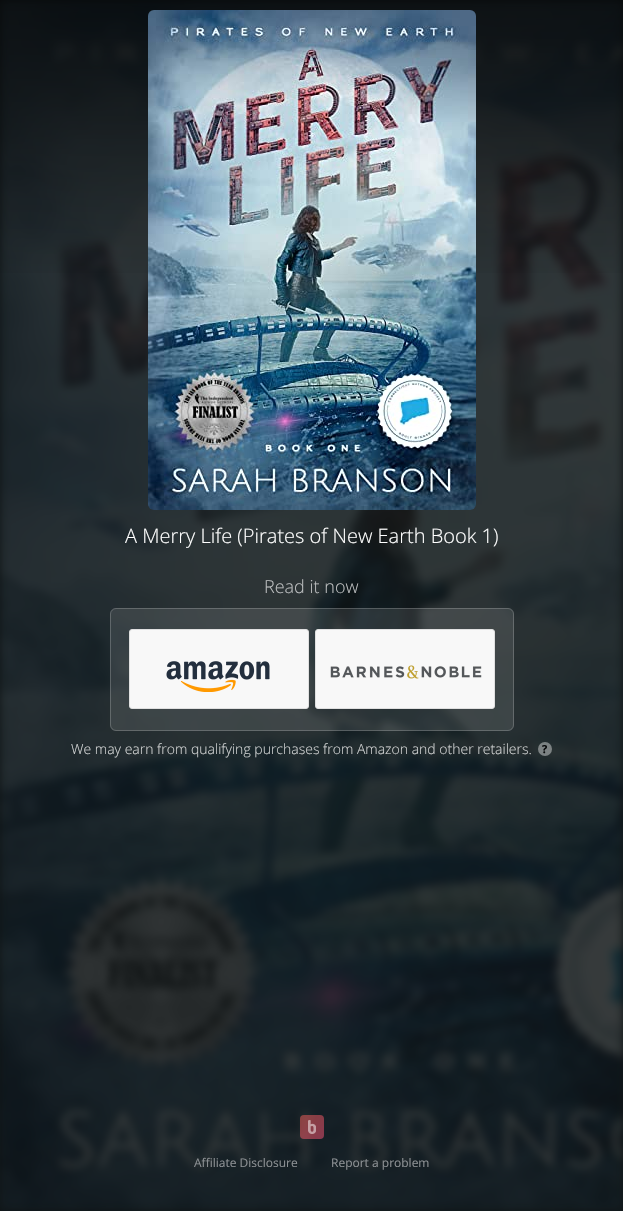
void draw(SkCanvas* canvas) {
	SkPaint paint;
	paint.setAntiAlias(true);
	canvas->clear(0xff0f1415);
	canvas->drawImageRect(SkImages::DeferredFromEncodedData(SkData::MakeFromFileName("img1.png")), SkRect::MakeXYWH(0, 0, 623, 1211), SkSamplingOptions());
	{
		const SkColor colors[] = {0x80000000, 0x00000000};
		const float stops[] = {0, 1};
		const SkPoint ends[] = {{312, 0}, {312, 300}};
		paint.setShader(SkGradientShader::MakeLinear(ends, colors, stops, 2, SkTileMode::kClamp));
		paint.setAlpha(255);
	}
	canvas->drawRect(SkRect::MakeXYWH(0, 0, 623, 273), paint);
	canvas->drawImageRect(SkImages::DeferredFromEncodedData(SkData::MakeFromFileName("img2.png")), SkRect::MakeXYWH(148, 10, 328, 500), SkSamplingOptions());
	SkFont f1(fontMgr->matchFamilyStyle("Open Sans", SkFontStyle(300, SkFontStyle::kNormal_Width, SkFontStyle::kUpright_Slant)), 20);
	f1.setSubpixel(true);
	paint.setShader(nullptr);
	paint.setColor(0xffffffff);
	canvas->drawString("A Merry Life (Pirates of New Earth Book 1)", 125, 543, f1, paint);
	SkFont f2(fontMgr->matchFamilyStyle("Open Sans", SkFontStyle(300, SkFontStyle::kNormal_Width, SkFontStyle::kUpright_Slant)), 18);
	f2.setSubpixel(true);
	paint.setColor(0xffbdbfc0);
	canvas->drawString("Read it now", 264, 593, f2, paint);
	paint.setColor(0x1affffff);
	canvas->drawRoundRect(SkRect::MakeXYWH(110, 608, 404, 123), 6, 6, paint);
	paint.setStroke(true);
	paint.setStrokeWidth(1);
	paint.setColor(0x33ffffff);
	canvas->drawRoundRect(SkRect::MakeXYWH(110.5, 608.5, 403, 122), 5.5, 5.5, paint);
	paint.setStroke(false);
	paint.setColor(0xfff8f8f8);
	canvas->drawRoundRect(SkRect::MakeXYWH(129.5, 629.5, 179, 79), 2.5, 2.5, paint);
	paint.setStroke(true);
	paint.setColor(0xffe0e0e0);
	canvas->drawRoundRect(SkRect::MakeXYWH(129.5, 629.5, 179, 79), 2.5, 2.5, paint);
	canvas->drawImageRect(SkImages::DeferredFromEncodedData(SkData::MakeFromFileName("img3.png")), SkRect::MakeXYWH(166, 661, 104, 31), SkSamplingOptions());
	paint.setStroke(false);
	paint.setColor(0xfff8f8f8);
	canvas->drawRoundRect(SkRect::MakeXYWH(315.5, 629.5, 179, 79), 2.5, 2.5, paint);
	paint.setStroke(true);
	paint.setColor(0xffe0e0e0);
	canvas->drawRoundRect(SkRect::MakeXYWH(315.5, 629.5, 179, 79), 2.5, 2.5, paint);
	canvas->drawImageRect(SkImages::DeferredFromEncodedData(SkData::MakeFromFileName("img4.png")), SkRect::MakeXYWH(330, 665, 152, 14), SkSamplingOptions());
	SkFont f3(fontMgr->matchFamilyStyle("Open Sans", SkFontStyle(300, SkFontStyle::kNormal_Width, SkFontStyle::kUpright_Slant)), 14);
	f3.setSubpixel(true);
	paint.setStroke(false);
	paint.setColor(0xffd3d5d5);
	canvas->drawString("We may earn from qualifying purchases from Amazon and other retailers.", 71, 754, f3, paint);
	paint.setColor(0x66ffffff);
	canvas->drawCircle(545, 749, 7, paint);
	SkFont f4(fontMgr->matchFamilyStyle("Open Sans", SkFontStyle::Bold()), 11);
	f4.setSubpixel(true);
	paint.setColor(0xff07090a);
	canvas->drawString("?", 542, 753, f4, paint);
	{
		const SkColor colors[] = {0x80f96259, 0x80ff537a};
		const float stops[] = {0, 1};
		const SkPoint ends[] = {{300, 1115}, {324, 1139}};
		paint.setShader(SkGradientShader::MakeLinear(ends, colors, stops, 2, SkTileMode::kClamp));
		paint.setAlpha(255);
	}
	canvas->drawRoundRect(SkRect::MakeXYWH(300, 1115, 24, 24), 4, 4, paint);
	canvas->drawImageRect(SkImages::DeferredFromEncodedData(SkData::MakeFromFileName("img5.png")), SkRect::MakeXYWH(308, 1120, 8, 14), SkSamplingOptions());
	SkFont f5(fontMgr->matchFamilyStyle("Open Sans", SkFontStyle::Normal()), 12);
	f5.setSubpixel(true);
	paint.setShader(nullptr);
	paint.setColor(0xff8d9194);
	canvas->drawString("Affiliate Disclosure", 194, 1167, f5, paint);
	canvas->drawString("Report a problem", 331, 1167, f5, paint);
}
